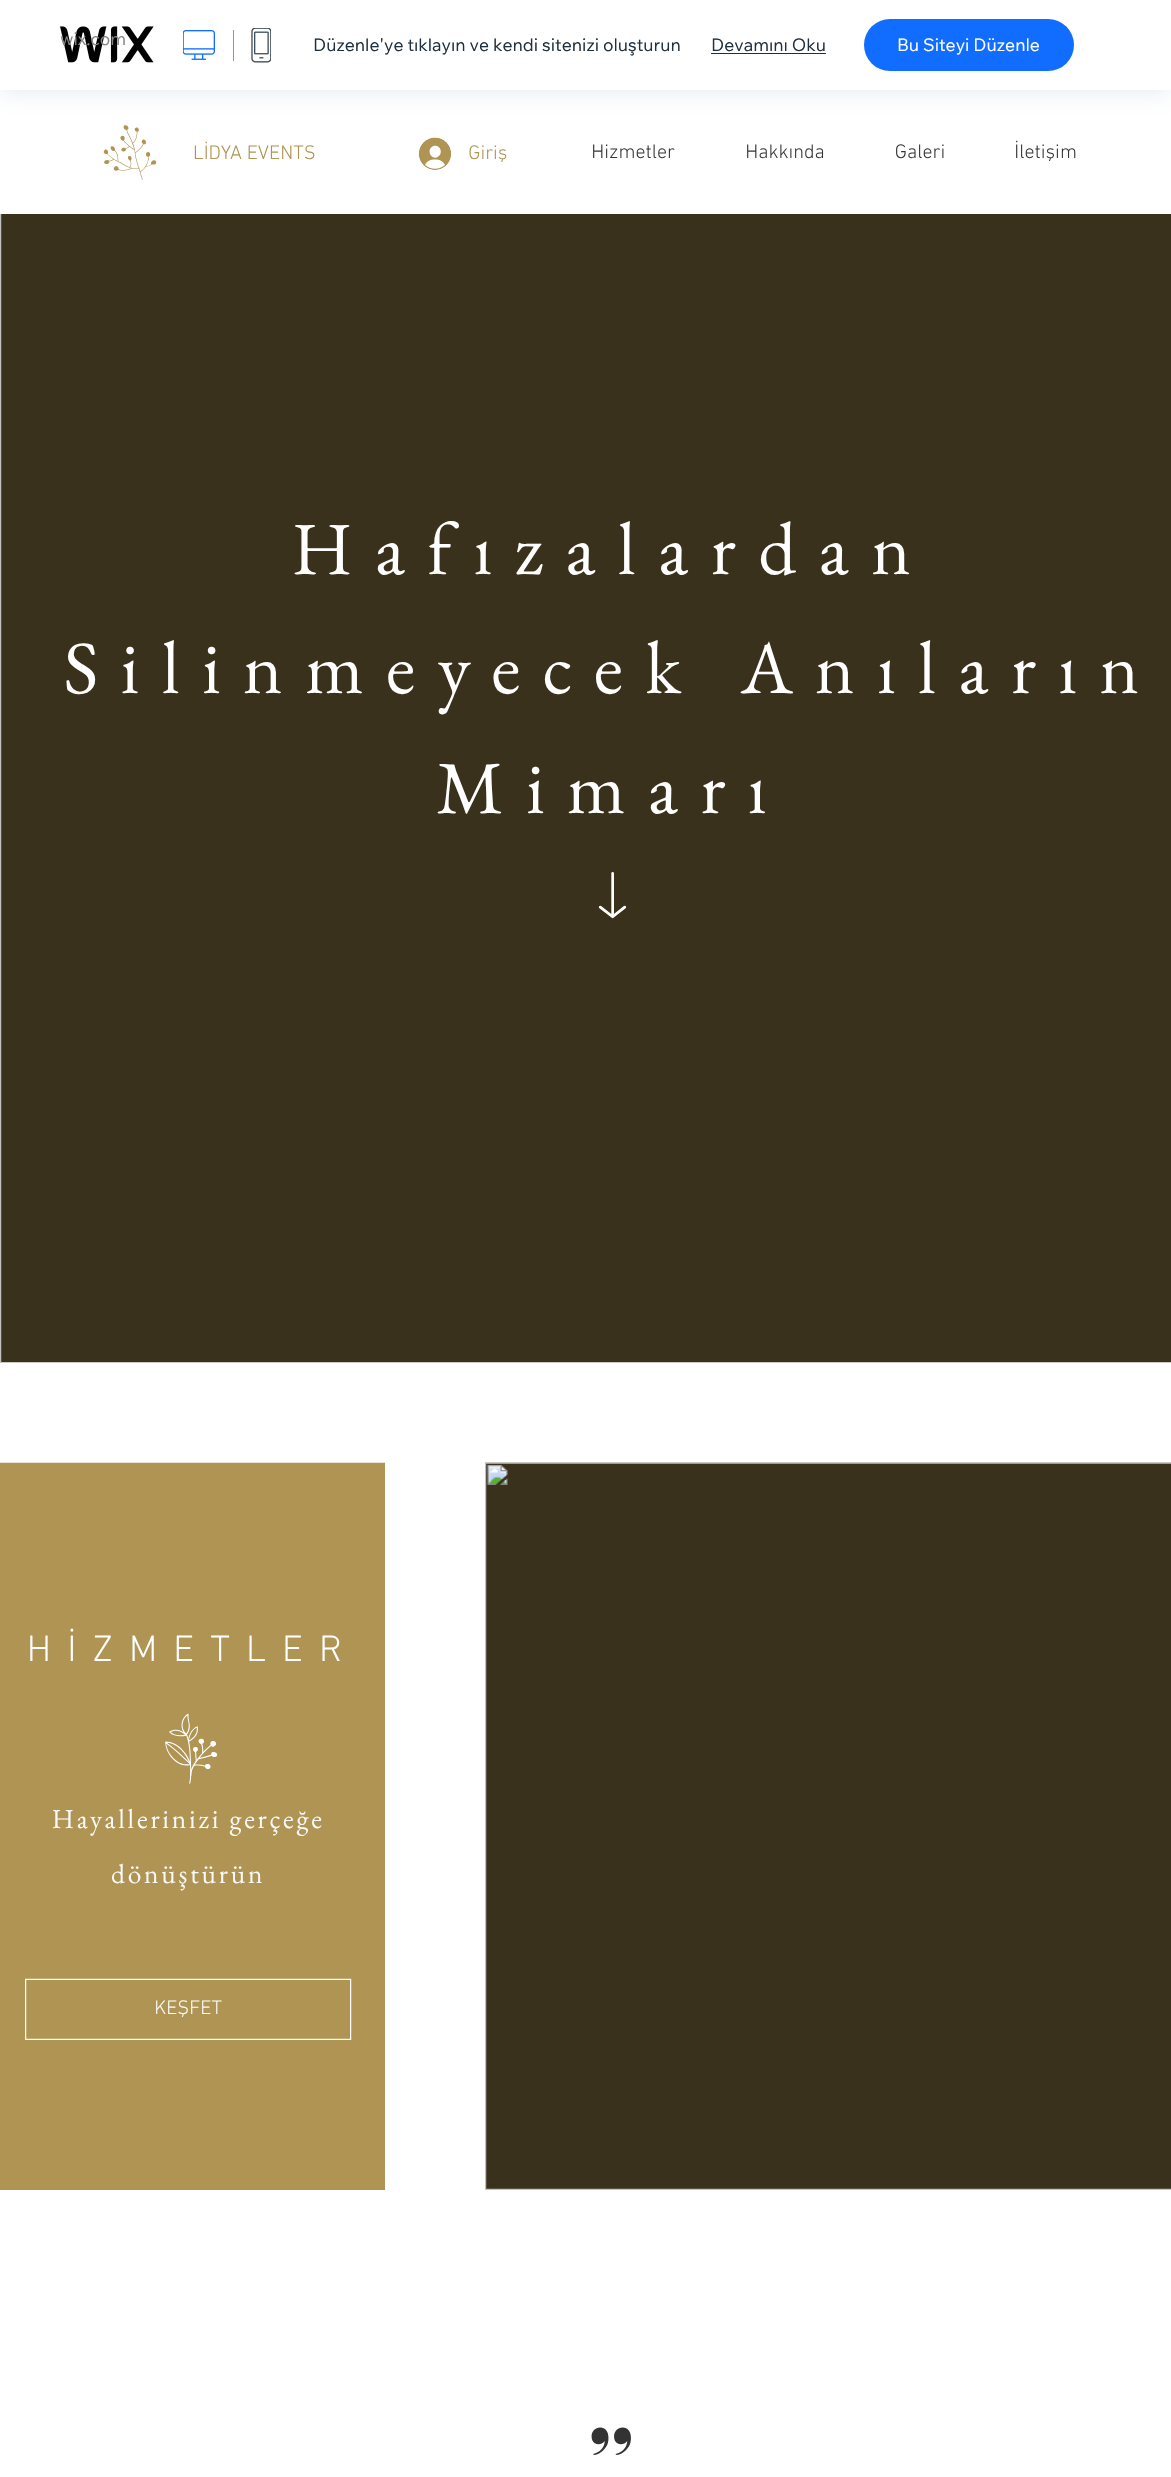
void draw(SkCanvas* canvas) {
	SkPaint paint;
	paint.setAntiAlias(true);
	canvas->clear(0xffffffff);
	canvas->drawImageRect(SkImages::DeferredFromEncodedData(SkData::MakeFromFileName("img4.png")), SkRect::MakeXYWH(0, 90, 1171, 2387), SkSamplingOptions());
	paint.setColor(0x3381a2b6);
	paint.setMaskFilter(SkMaskFilter::MakeBlur(kNormal_SkBlurStyle, 11));
	canvas->drawRect(SkRect::MakeXYWH(0, 3, 1171, 90), paint);
	paint.setMaskFilter(nullptr);
	paint.setColor(0xffffffff);
	canvas->drawRect(SkRect::MakeXYWH(0, 0, 1171, 90), paint);
	canvas->drawImageRect(SkImages::DeferredFromEncodedData(SkData::MakeFromFileName("img1.png")), SkRect::MakeXYWH(60, 26, 94, 37), SkSamplingOptions());
	SkFont f1(fontMgr->matchFamilyStyle("Wix Madefor Text", SkFontStyle::Normal()), 17.5);
	f1.setSubpixel(true);
	paint.setColor(0xff868686);
	canvas->drawString("wix.com", 60, 45, f1, paint);
	canvas->drawImageRect(SkImages::DeferredFromEncodedData(SkData::MakeFromFileName("img2.png")), SkRect::MakeXYWH(183, 30, 32, 30), SkSamplingOptions());
	paint.setColor(0xff90989e);
	canvas->drawRect(SkRect::MakeXYWH(233, 30, 1, 31), paint);
	canvas->drawImageRect(SkImages::DeferredFromEncodedData(SkData::MakeFromFileName("img3.png")), SkRect::MakeXYWH(251, 28, 20, 35), SkSamplingOptions());
	paint.setColor(0xff20303c);
	canvas->drawString("Düzenle'ye tıklayın ve kendi sitenizi oluşturun", 313, 51, f1, paint);
	canvas->drawString("Devamını Oku", 711, 51, f1, paint);
	canvas->drawRect(SkRect::MakeXYWH(711, 53, 115, 1), paint);
	paint.setColor(0xff116dff);
	canvas->drawRoundRect(SkRect::MakeXYWH(864, 19, 210, 52), 26, 26, paint);
	paint.setColor(0xffffffff);
	canvas->drawString("Bu Siteyi Düzenle", 897, 51, f1, paint);
}
